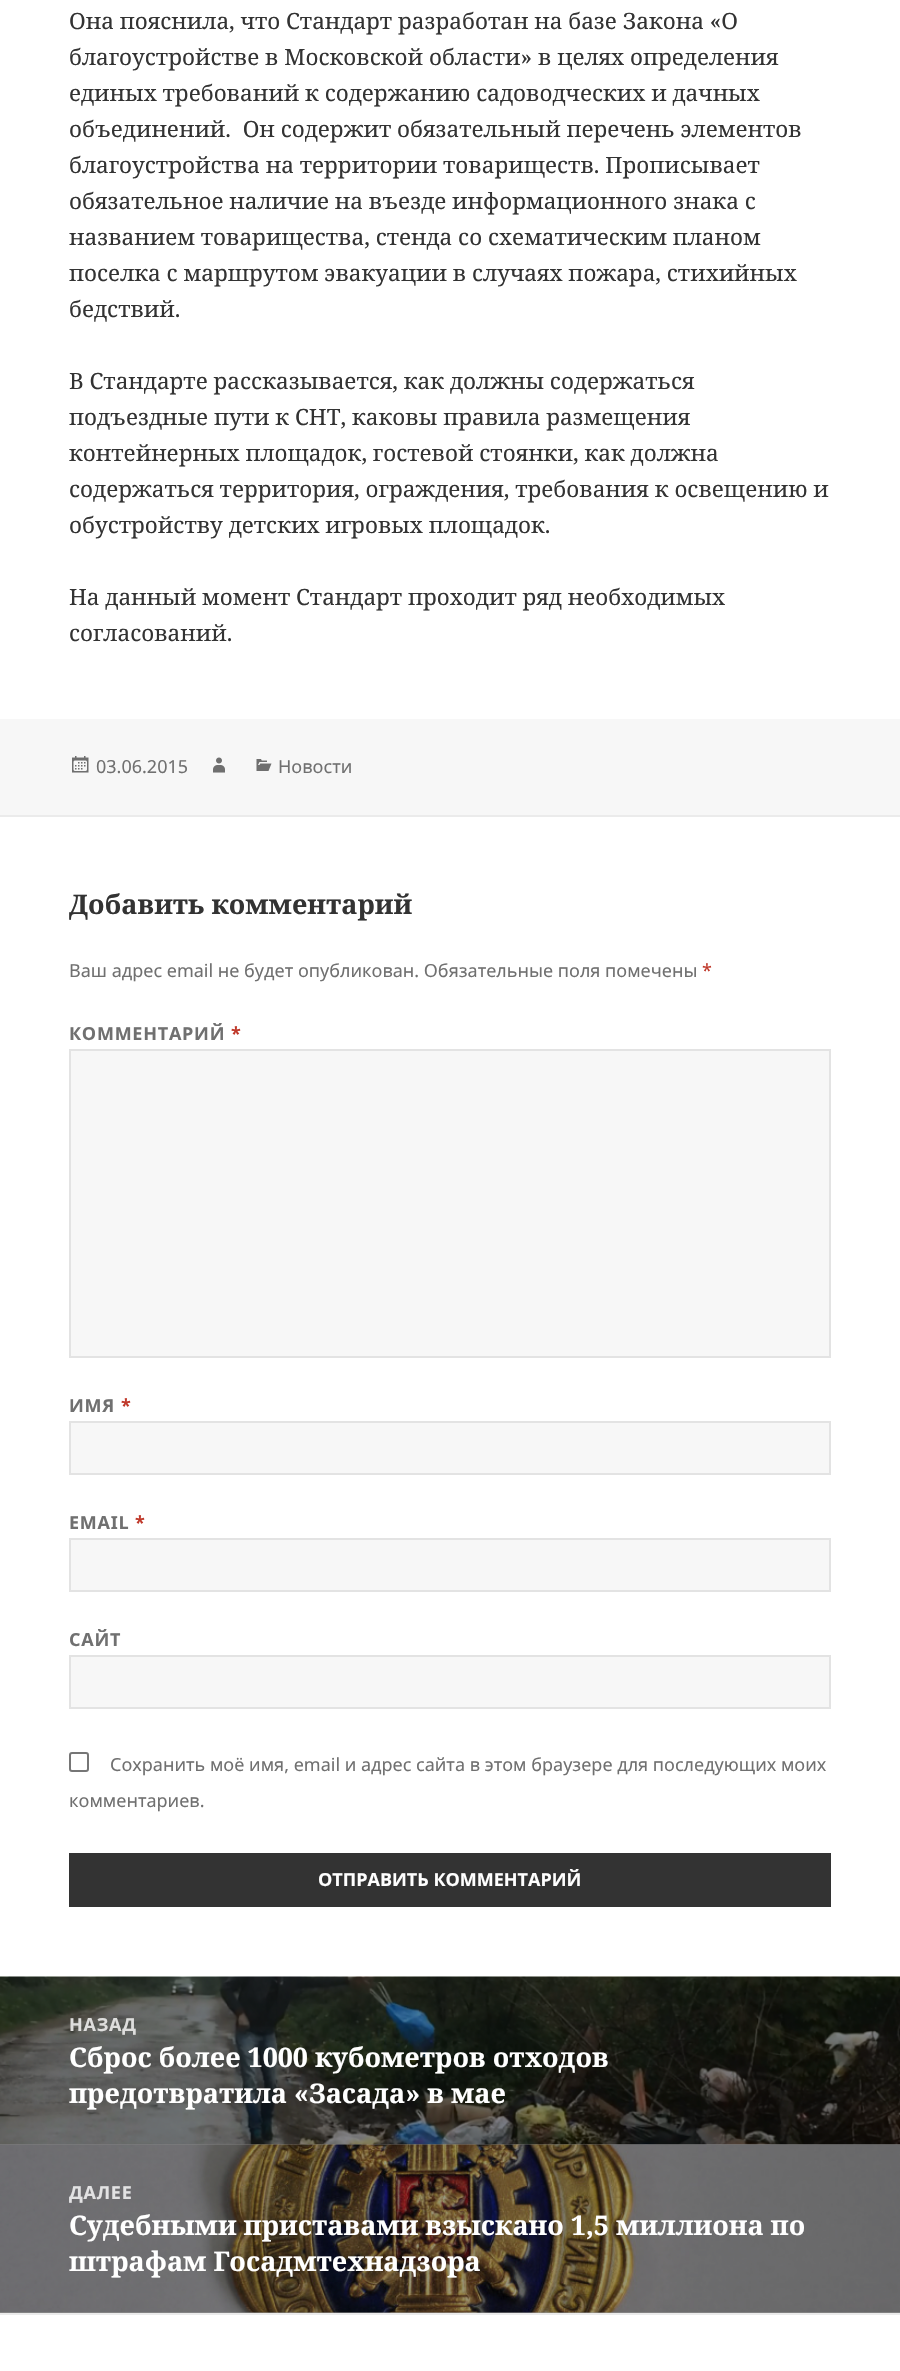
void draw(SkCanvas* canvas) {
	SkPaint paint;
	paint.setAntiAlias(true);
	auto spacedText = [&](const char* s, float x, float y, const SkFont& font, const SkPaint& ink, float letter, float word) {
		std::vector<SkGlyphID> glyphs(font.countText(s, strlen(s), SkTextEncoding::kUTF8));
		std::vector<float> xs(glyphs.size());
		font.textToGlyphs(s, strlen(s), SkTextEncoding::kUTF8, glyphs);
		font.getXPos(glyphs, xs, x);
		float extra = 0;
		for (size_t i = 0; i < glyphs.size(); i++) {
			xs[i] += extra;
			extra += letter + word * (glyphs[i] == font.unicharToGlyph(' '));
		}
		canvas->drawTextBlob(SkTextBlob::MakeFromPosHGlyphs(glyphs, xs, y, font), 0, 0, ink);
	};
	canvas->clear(0xffffffff);
	SkFont f1(fontMgr->matchFamilyStyle("Noto Serif", SkFontStyle::Normal()), 22.5);
	f1.setSubpixel(true);
	paint.setColor(0xff333333);
	canvas->drawString("Она пояснила, что Стандарт разработан на базе Закона «О", 69, 29, f1, paint);
	canvas->drawString("благоустройстве в Московской области» в целях определения", 69, 65, f1, paint);
	canvas->drawString("единых требований к содержанию садоводческих и дачных", 69, 101, f1, paint);
	canvas->drawString("объединений.  Он содержит обязательный перечень элементов", 69, 137, f1, paint);
	canvas->drawString("благоустройства на территории товариществ. Прописывает", 69, 173, f1, paint);
	canvas->drawString("обязательное наличие на въезде информационного знака с", 69, 209, f1, paint);
	canvas->drawString("названием товарищества, стенда со схематическим планом", 69, 245, f1, paint);
	canvas->drawString("поселка с маршрутом эвакуации в случаях пожара, стихийных", 69, 281, f1, paint);
	canvas->drawString("бедствий.", 69, 317, f1, paint);
	canvas->drawString("В Стандарте рассказывается, как должны содержаться", 69, 389, f1, paint);
	canvas->drawString("подъездные пути к СНТ, каковы правила размещения", 69, 425, f1, paint);
	canvas->drawString("контейнерных площадок, гостевой стоянки, как должна", 69, 461, f1, paint);
	canvas->drawString("содержаться территория, ограждения, требования к освещению и", 69, 497, f1, paint);
	canvas->drawString("обустройству детских игровых площадок.", 69, 533, f1, paint);
	canvas->drawString("На данный момент Стандарт проходит ряд необходимых", 69, 605, f1, paint);
	canvas->drawString("согласований.", 69, 641, f1, paint);
	paint.setColor(0xfff7f7f7);
	canvas->drawRect(SkRect::MakeXYWH(0, 719, 900, 96), paint);
	canvas->drawImageRect(SkImages::DeferredFromEncodedData(SkData::MakeFromFileName("img1.png")), SkRect::MakeXYWH(72, 756, 17, 17), SkSamplingOptions());
	SkFont f2(fontMgr->matchFamilyStyle("Noto Sans", SkFontStyle::Normal()), 18);
	f2.setSubpixel(true);
	paint.setColor(0xff707070);
	canvas->drawString("03.06.2015", 96, 773, f2, paint);
	canvas->drawImageRect(SkImages::DeferredFromEncodedData(SkData::MakeFromFileName("img2.png")), SkRect::MakeXYWH(213, 757, 12, 16), SkSamplingOptions());
	canvas->drawImageRect(SkImages::DeferredFromEncodedData(SkData::MakeFromFileName("img3.png")), SkRect::MakeXYWH(256, 759, 16, 12), SkSamplingOptions());
	canvas->drawString("Новости", 278, 773, f2, paint);
	paint.setColor(0xffebebeb);
	canvas->drawRect(SkRect::MakeXYWH(0, 815, 900, 2), paint);
	SkFont f3(fontMgr->matchFamilyStyle("Noto Serif", SkFontStyle::Bold()), 27);
	f3.setSubpixel(true);
	paint.setColor(0xff333333);
	canvas->drawString("Добавить комментарий", 69, 914, f3, paint);
	paint.setColor(0xff707070);
	canvas->drawString("Ваш адрес email не будет опубликован. Обязательные поля помечены", 69, 977, f2, paint);
	paint.setColor(0xffc0392b);
	canvas->drawString("*", 702, 977, f2, paint);
	SkFont f4(fontMgr->matchFamilyStyle("Noto Sans", SkFontStyle::Bold()), 18);
	f4.setSubpixel(true);
	paint.setColor(0xff707070);
	spacedText("КОММЕНТАРИЙ", 69, 1040, f4, paint, 0.75, 0);
	paint.setColor(0xffc0392b);
	spacedText("*", 231, 1040, f4, paint, 0.75, 0);
	paint.setColor(0xfff7f7f7);
	canvas->drawRect(SkRect::MakeXYWH(70, 1050, 760, 307), paint);
	paint.setStroke(true);
	paint.setStrokeWidth(2);
	paint.setColor(0xffe3e3e3);
	canvas->drawRect(SkRect::MakeXYWH(70, 1050, 760, 307), paint);
	paint.setStroke(false);
	paint.setColor(0xff707070);
	spacedText("ИМЯ", 69, 1412, f4, paint, 0.75, 0);
	paint.setColor(0xffc0392b);
	spacedText("*", 121, 1412, f4, paint, 0.75, 0);
	paint.setColor(0xfff7f7f7);
	canvas->drawRect(SkRect::MakeXYWH(70, 1422, 760, 52), paint);
	paint.setStroke(true);
	paint.setColor(0xffe3e3e3);
	canvas->drawRect(SkRect::MakeXYWH(70, 1422, 760, 52), paint);
	paint.setStroke(false);
	paint.setColor(0xff707070);
	spacedText("EMAIL", 69, 1529, f4, paint, 0.75, 0);
	paint.setColor(0xffc0392b);
	spacedText("*", 135, 1529, f4, paint, 0.75, 0);
	paint.setColor(0xfff7f7f7);
	canvas->drawRect(SkRect::MakeXYWH(70, 1539, 760, 52), paint);
	paint.setStroke(true);
	paint.setColor(0xffe3e3e3);
	canvas->drawRect(SkRect::MakeXYWH(70, 1539, 760, 52), paint);
	paint.setStroke(false);
	paint.setColor(0xff707070);
	spacedText("САЙТ", 69, 1646, f4, paint, 0.75, 0);
	paint.setColor(0xfff7f7f7);
	canvas->drawRect(SkRect::MakeXYWH(70, 1656, 760, 52), paint);
	paint.setStroke(true);
	paint.setColor(0xffe3e3e3);
	canvas->drawRect(SkRect::MakeXYWH(70, 1656, 760, 52), paint);
	paint.setColor(0xff767676);
	canvas->drawRoundRect(SkRect::MakeXYWH(70, 1753, 18, 18), 2, 2, paint);
	paint.setStroke(false);
	paint.setColor(0xff707070);
	canvas->drawString("Сохранить моё имя, email и адрес сайта в этом браузере для последующих моих", 110, 1771, f2, paint);
	canvas->drawString("комментариев.", 69, 1807, f2, paint);
	paint.setColor(0xff333333);
	canvas->drawRect(SkRect::MakeXYWH(69, 1853, 762, 54), paint);
	paint.setColor(0xffffffff);
	canvas->drawString("ОТПРАВИТЬ КОММЕНТАРИЙ", 318, 1886, f4, paint);
	paint.setColor(0xff999999);
	canvas->drawRect(SkRect::MakeXYWH(0, 2312, 900, 1), paint);
	paint.setColor(0xffebebeb);
	canvas->drawRect(SkRect::MakeXYWH(0, 1976, 900, 1), paint);
	canvas->drawImageRect(SkImages::DeferredFromEncodedData(SkData::MakeFromFileName("img4.png")), SkRect::MakeXYWH(0, 1976, 900, 169), SkSamplingOptions());
	canvas->drawImageRect(SkImages::DeferredFromEncodedData(SkData::MakeFromFileName("img5.png")), SkRect::MakeXYWH(0, 2144, 900, 169), SkSamplingOptions());
	paint.setColor(0x66000000);
	canvas->drawRect(SkRect::MakeXYWH(0, 1977, 900, 168), paint);
	paint.setColor(0xffdededd);
	spacedText("НАЗАД", 69, 2031, f4, paint, 0.75, 0);
	paint.setColor(0xffffffff);
	canvas->drawString("Сброс более 1000 кубометров отходов", 69, 2067, f3, paint);
	canvas->drawString("предотвратила «Засада» в мае", 69, 2103, f3, paint);
	paint.setColor(0xffe2e2e3);
	spacedText("ДАЛЕЕ", 69, 2199, f4, paint, 0.75, 0);
	paint.setColor(0xffffffff);
	canvas->drawString("Судебными приставами взыскано 1,5 миллиона по", 69, 2235, f3, paint);
	canvas->drawString("штрафам Госадмтехнадзора", 69, 2271, f3, paint);
	paint.setColor(0xffebebeb);
	canvas->drawRect(SkRect::MakeXYWH(0, 2313, 900, 2), paint);
}
